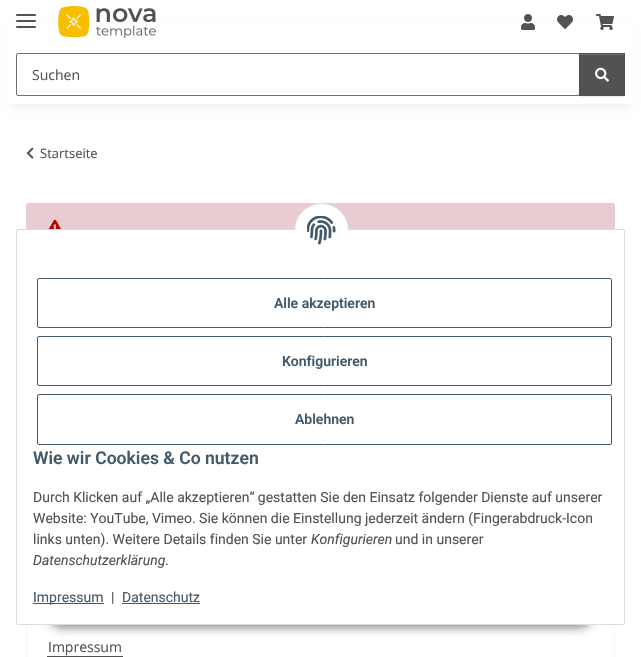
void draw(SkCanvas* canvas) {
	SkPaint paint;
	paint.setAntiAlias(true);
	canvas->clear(0xffffffff);
	paint.setColor(0x0f000000);
	paint.setMaskFilter(SkMaskFilter::MakeBlur(kNormal_SkBlurStyle, 4.5));
	canvas->drawRect(SkRect::MakeXYWH(12, 28, 617, 80), paint);
	paint.setMaskFilter(nullptr);
	paint.setColor(0xffffffff);
	canvas->drawRect(SkRect::MakeXYWH(8, 24, 625, 80), paint);
	paint.setColor(0xff525252);
	canvas->drawRoundRect(SkRect::MakeXYWH(16, 20, 20, 2), 1, 1, paint);
	canvas->drawRoundRect(SkRect::MakeXYWH(16, 14, 20, 2), 1, 1, paint);
	canvas->drawRoundRect(SkRect::MakeXYWH(16, 26, 20, 2), 1, 1, paint);
	canvas->drawImageRect(SkImages::DeferredFromEncodedData(SkData::MakeFromFileName("img1.png")), SkRect::MakeXYWH(58, 6, 98, 32), SkSamplingOptions());
	canvas->drawImageRect(SkImages::DeferredFromEncodedData(SkData::MakeFromFileName("img2.png")), SkRect::MakeXYWH(521, 14, 14, 16), SkSamplingOptions());
	canvas->drawImageRect(SkImages::DeferredFromEncodedData(SkData::MakeFromFileName("img3.png")), SkRect::MakeXYWH(557, 15, 16, 14), SkSamplingOptions());
	canvas->drawImageRect(SkImages::DeferredFromEncodedData(SkData::MakeFromFileName("img4.png")), SkRect::MakeXYWH(596, 14, 18, 16), SkSamplingOptions());
	paint.setStroke(true);
	paint.setStrokeWidth(1);
	paint.setColor(0xff707070);
	canvas->drawRoundRect(SkRect::MakeXYWH(16.5, 53.5, 563, 42), 1.5, 1.5, paint);
	SkFont f1(fontMgr->matchFamilyStyle("Open Sans", SkFontStyle::Normal()), 14);
	f1.setSubpixel(true);
	paint.setStroke(false);
	paint.setColor(0xff525252);
	canvas->drawString("Suchen", 32, 80, f1, paint);
	paint.setColor(0x12000000);
	paint.setMaskFilter(SkMaskFilter::MakeBlur(kNormal_SkBlurStyle, 0.5));
	canvas->drawRect(SkRect::MakeXYWH(579, 54, 46, 43), paint);
	paint.setMaskFilter(nullptr);
	paint.setColor(0xff525252);
	canvas->drawRect(SkRect::MakeXYWH(579, 53, 46, 43), paint);
	paint.setColor(0xff6c6c6c);
	canvas->drawRect(SkRect::MakeXYWH(580, 54, 44, 1), paint);
	canvas->drawImageRect(SkImages::DeferredFromEncodedData(SkData::MakeFromFileName("img5.png")), SkRect::MakeXYWH(595, 67, 14, 15), SkSamplingOptions());
	canvas->drawImageRect(SkImages::DeferredFromEncodedData(SkData::MakeFromFileName("img6.png")), SkRect::MakeXYWH(26, 147, 8, 12), SkSamplingOptions());
	SkFont f2(fontMgr->matchFamilyStyle("Open Sans", SkFontStyle::Normal()), 13);
	f2.setSubpixel(true);
	paint.setColor(0xff525252);
	canvas->drawString("Startseite", 40, 158, f2, paint);
	paint.setColor(0xffe8ccd2);
	canvas->drawRoundRect(SkRect::MakeXYWH(26.5, 203.5, 588, 46), 1.5, 1.5, paint);
	paint.setStroke(true);
	canvas->drawRoundRect(SkRect::MakeXYWH(26.5, 203.5, 588, 46), 1.5, 1.5, paint);
	canvas->drawImageRect(SkImages::DeferredFromEncodedData(SkData::MakeFromFileName("img7.png")), SkRect::MakeXYWH(48, 219, 13, 10), SkSamplingOptions());
	paint.setColor(0xfff5f7fa);
	canvas->drawRect(SkRect::MakeXYWH(26.5, 266.5, 588, 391), paint);
	paint.setStroke(false);
	paint.setColor(0xff525252);
	canvas->drawString("Impressum", 48, 652, f1, paint);
	canvas->drawRect(SkRect::MakeXYWH(47, 656, 76, 1), paint);
	paint.setColor(0x73000000);
	paint.setMaskFilter(SkMaskFilter::MakeBlur(kNormal_SkBlurStyle, 5));
	canvas->drawRoundRect(SkRect::MakeXYWH(47, 596, 547, 32), 16, 16, paint);
	paint.setMaskFilter(nullptr);
	paint.setColor(0xffffffff);
	canvas->drawRoundRect(SkRect::MakeXYWH(16.5, 229.5, 608, 395), 1.5, 1.5, paint);
	paint.setStroke(true);
	paint.setColor(0xffdddddd);
	canvas->drawRoundRect(SkRect::MakeXYWH(16.5, 229.5, 608, 395), 1.5, 1.5, paint);
	paint.setStroke(false);
	paint.setColor(0xffffffff);
	canvas->drawCircle(321.5, 230.5, 27, paint);
	paint.setStroke(true);
	paint.setColor(0xffdddddd);
	canvas->drawCircle(321.5, 230.5, 27, paint);
	paint.setStroke(false);
	paint.setColor(0xffffffff);
	canvas->drawRect(SkRect::MakeXYWH(294, 231, 55, 27), paint);
	canvas->drawImageRect(SkImages::DeferredFromEncodedData(SkData::MakeFromFileName("img8.png")), SkRect::MakeXYWH(307, 216, 29, 29), SkSamplingOptions());
	paint.setStroke(true);
	paint.setColor(0xff435a6b);
	canvas->drawRoundRect(SkRect::MakeXYWH(37.5, 278.5, 574, 49), 1.5, 1.5, paint);
	SkFont f3(fontMgr->matchFamilyStyle("Roboto", SkFontStyle(600, SkFontStyle::kNormal_Width, SkFontStyle::kUpright_Slant)), 14);
	f3.setSubpixel(true);
	paint.setStroke(false);
	canvas->drawString("Alle akzeptieren", 274, 308, f3, paint);
	paint.setStroke(true);
	canvas->drawRoundRect(SkRect::MakeXYWH(37.5, 336.5, 574, 49), 1.5, 1.5, paint);
	paint.setStroke(false);
	canvas->drawString("Konfigurieren", 282, 366, f3, paint);
	paint.setStroke(true);
	canvas->drawRoundRect(SkRect::MakeXYWH(37.5, 394.5, 574, 50), 1.5, 1.5, paint);
	paint.setStroke(false);
	canvas->drawString("Ablehnen", 295, 424, f3, paint);
	SkFont f4(fontMgr->matchFamilyStyle("Roboto", SkFontStyle(600, SkFontStyle::kNormal_Width, SkFontStyle::kUpright_Slant)), 17.6);
	f4.setSubpixel(true);
	canvas->drawString("Wie wir Cookies & Co nutzen", 33, 464, f4, paint);
	SkFont f5(fontMgr->matchFamilyStyle("Roboto", SkFontStyle::Normal()), 14);
	f5.setSubpixel(true);
	paint.setColor(0xff525252);
	canvas->drawString("Durch Klicken auf „Alle akzeptieren“ gestatten Sie den Einsatz folgender Dienste auf unserer", 33, 502, f5, paint);
	canvas->drawString("Website: YouTube, Vimeo. Sie können die Einstellung jederzeit ändern (Fingerabdruck-Icon", 33, 523, f5, paint);
	canvas->drawString("links unten). Weitere Details finden Sie unter", 33, 544, f5, paint);
	SkFont f6(fontMgr->matchFamilyStyle("Roboto", SkFontStyle::Italic()), 14);
	f6.setSubpixel(true);
	canvas->drawString("Konfigurieren", 311, 544, f6, paint);
	canvas->drawString("und in unserer", 395, 544, f5, paint);
	canvas->drawString("Datenschutzerklärung", 33, 565, f6, paint);
	canvas->drawString(".", 165, 565, f5, paint);
	paint.setColor(0xff435a6b);
	canvas->drawRect(SkRect::MakeXYWH(33, 603, 71, 1), paint);
	canvas->drawString("Impressum", 33, 602, f5, paint);
	paint.setColor(0xff525252);
	canvas->drawString("|", 111, 602, f5, paint);
	paint.setColor(0xff435a6b);
	canvas->drawString("Datenschutz", 122, 602, f5, paint);
	canvas->drawRect(SkRect::MakeXYWH(122, 603, 78, 1), paint);
}
